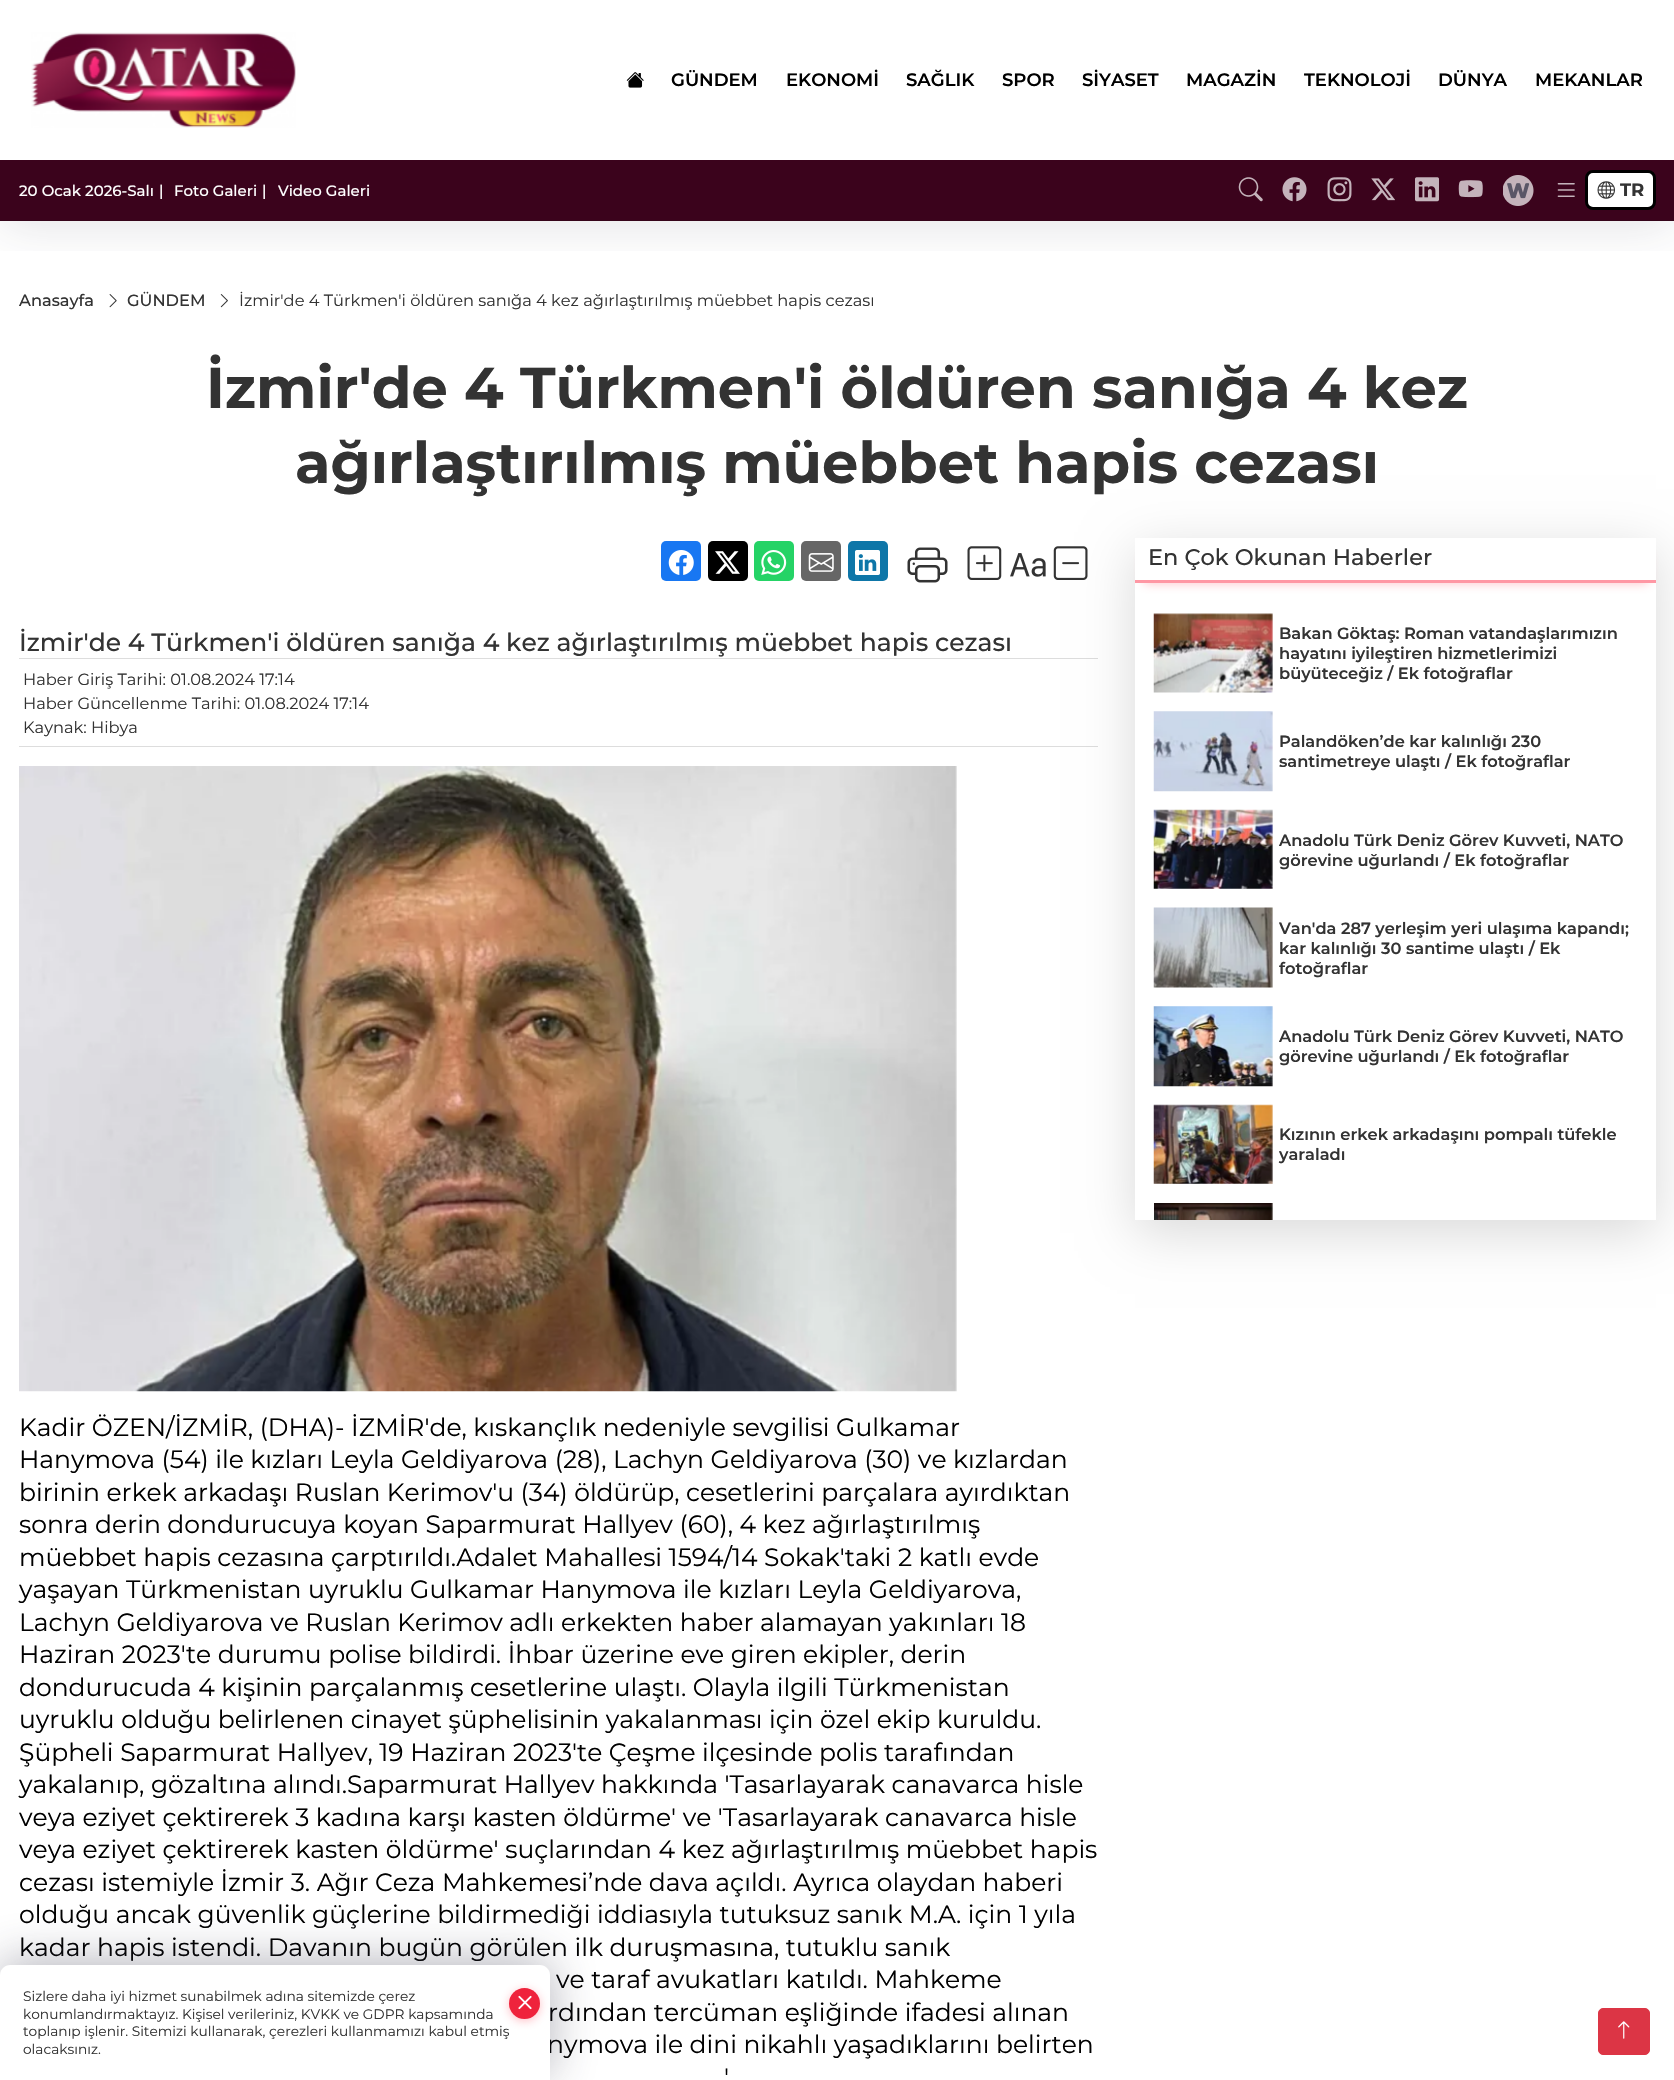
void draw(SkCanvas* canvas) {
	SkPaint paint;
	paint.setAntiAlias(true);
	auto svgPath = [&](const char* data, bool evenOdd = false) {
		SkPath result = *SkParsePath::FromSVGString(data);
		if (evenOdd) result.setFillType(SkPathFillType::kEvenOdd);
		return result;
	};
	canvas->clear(0xffffffff);
	canvas->drawImageRect(SkImages::DeferredFromEncodedData(SkData::MakeFromFileName("img12.png")), SkRect::MakeXYWH(109, 294, 8, 14), SkSamplingOptions());
	canvas->drawImageRect(SkImages::DeferredFromEncodedData(SkData::MakeFromFileName("img13.png")), SkRect::MakeXYWH(220, 294, 8, 14), SkSamplingOptions());
	canvas->save();
	canvas->clipRect(SkRect::MakeXYWH(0, 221, 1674, 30));
	paint.setColor(0x242b2d42);
	paint.setMaskFilter(SkMaskFilter::MakeBlur(kNormal_SkBlurStyle, 24));
	canvas->drawRect(SkRect::MakeXYWH(0, 4, 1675, 221), paint);
	paint.setMaskFilter(nullptr);
	canvas->restore();
	canvas->drawImageRect(SkImages::DeferredFromEncodedData(SkData::MakeFromFileName("img1.png")), SkRect::MakeXYWH(31, 32, 265, 96), SkSamplingOptions());
	canvas->drawImageRect(SkImages::DeferredFromEncodedData(SkData::MakeFromFileName("img2.png")), SkRect::MakeXYWH(626, 72, 18, 16), SkSamplingOptions());
	SkFont f1(fontMgr->matchFamilyStyle("Montserrat", SkFontStyle(600, SkFontStyle::kNormal_Width, SkFontStyle::kUpright_Slant)), 18);
	f1.setSubpixel(true);
	paint.setColor(0xff000000);
	canvas->drawString("GÜNDEM", 671, 86, f1, paint);
	canvas->drawString("EKONOMİ", 786, 86, f1, paint);
	canvas->drawString("SAĞLIK", 906, 86, f1, paint);
	canvas->drawString("SPOR", 1002, 86, f1, paint);
	canvas->drawString("SİYASET", 1082, 86, f1, paint);
	canvas->drawString("MAGAZİN", 1186, 86, f1, paint);
	canvas->drawString("TEKNOLOJİ", 1304, 86, f1, paint);
	canvas->drawString("DÜNYA", 1438, 86, f1, paint);
	canvas->drawString("MEKANLAR", 1535, 86, f1, paint);
	paint.setColor(0xff3b031c);
	canvas->drawRect(SkRect::MakeXYWH(0, 160, 1674, 60), paint);
	paint.setColor(0xff350319);
	canvas->drawRect(SkRect::MakeXYWH(0, 220, 1674, 1), paint);
	SkFont f2(fontMgr->matchFamilyStyle("Montserrat", SkFontStyle(500, SkFontStyle::kNormal_Width, SkFontStyle::kUpright_Slant)), 15);
	f2.setSubpixel(true);
	paint.setColor(0xffffffff);
	canvas->drawString("20 Ocak 2026-Salı", 19, 196, f2, paint);
	canvas->drawString("|", 159, 196, f2, paint);
	canvas->drawString("Foto Galeri", 174, 196, f2, paint);
	canvas->drawString("|", 262, 196, f2, paint);
	canvas->drawString("Video Galeri", 278, 196, f2, paint);
	canvas->drawImageRect(SkImages::DeferredFromEncodedData(SkData::MakeFromFileName("img3.png")), SkRect::MakeXYWH(1238, 177, 25, 25), SkSamplingOptions());
	canvas->drawImageRect(SkImages::DeferredFromEncodedData(SkData::MakeFromFileName("img4.png")), SkRect::MakeXYWH(1282, 177, 25, 25), SkSamplingOptions());
	canvas->drawImageRect(SkImages::DeferredFromEncodedData(SkData::MakeFromFileName("img5.png")), SkRect::MakeXYWH(1327, 177, 25, 25), SkSamplingOptions());
	canvas->drawImageRect(SkImages::DeferredFromEncodedData(SkData::MakeFromFileName("img6.png")), SkRect::MakeXYWH(1371, 178, 24, 23), SkSamplingOptions());
	canvas->drawImageRect(SkImages::DeferredFromEncodedData(SkData::MakeFromFileName("img7.png")), SkRect::MakeXYWH(1415, 177, 24, 25), SkSamplingOptions());
	canvas->drawImageRect(SkImages::DeferredFromEncodedData(SkData::MakeFromFileName("img8.png")), SkRect::MakeXYWH(1458, 180, 25, 18), SkSamplingOptions());
	canvas->drawImageRect(SkImages::DeferredFromEncodedData(SkData::MakeFromFileName("img9.png")), SkRect::MakeXYWH(1503, 175, 31, 31), SkSamplingOptions());
	canvas->drawImageRect(SkImages::DeferredFromEncodedData(SkData::MakeFromFileName("img10.png")), SkRect::MakeXYWH(1557, 183, 18, 14), SkSamplingOptions());
	canvas->drawRoundRect(SkRect::MakeXYWH(1586.5, 171.5, 68, 37), 6.5, 6.5, paint);
	paint.setStroke(true);
	paint.setStrokeWidth(3);
	paint.setColor(0xff000000);
	canvas->drawRoundRect(SkRect::MakeXYWH(1586.5, 171.5, 68, 37), 6.5, 6.5, paint);
	canvas->drawImageRect(SkImages::DeferredFromEncodedData(SkData::MakeFromFileName("img11.png")), SkRect::MakeXYWH(1597, 181, 18, 18), SkSamplingOptions());
	SkFont f3(fontMgr->matchFamilyStyle("Montserrat", SkFontStyle::Bold()), 18);
	f3.setSubpixel(true);
	paint.setStroke(false);
	paint.setColor(0xff333333);
	canvas->drawString("TR", 1620, 196, f3, paint);
	SkFont f4(fontMgr->matchFamilyStyle("Montserrat", SkFontStyle(500, SkFontStyle::kNormal_Width, SkFontStyle::kUpright_Slant)), 16.25);
	f4.setSubpixel(true);
	canvas->drawString("Anasayfa", 19, 306, f4, paint);
	canvas->drawString("GÜNDEM", 127, 306, f4, paint);
	SkFont f5(fontMgr->matchFamilyStyle("Montserrat", SkFontStyle::Normal()), 16.25);
	f5.setSubpixel(true);
	canvas->drawString("İzmir'de 4 Türkmen'i öldüren sanığa 4 kez ağırlaştırılmış müebbet hapis cezası", 239, 306, f5, paint);
	SkFont f6(fontMgr->matchFamilyStyle("Montserrat", SkFontStyle::Bold()), 57.5);
	f6.setSubpixel(true);
	canvas->drawString("İzmir'de 4 Türkmen'i öldüren sanığa 4 kez", 206, 408, f6, paint);
	canvas->drawString("ağırlaştırılmış müebbet hapis cezası", 295, 483, f6, paint);
	paint.setColor(0xff1877f2);
	canvas->drawRoundRect(SkRect::MakeXYWH(661, 541, 40, 40), 5, 5, paint);
	canvas->drawImageRect(SkImages::DeferredFromEncodedData(SkData::MakeFromFileName("img14.png")), SkRect::MakeXYWH(668, 550, 26, 25), SkSamplingOptions());
	paint.setColor(0xff000000);
	canvas->drawRoundRect(SkRect::MakeXYWH(708, 541, 40, 40), 5, 5, paint);
	canvas->drawImageRect(SkImages::DeferredFromEncodedData(SkData::MakeFromFileName("img15.png")), SkRect::MakeXYWH(715, 551, 25, 23), SkSamplingOptions());
	paint.setColor(0xff25d366);
	canvas->drawRoundRect(SkRect::MakeXYWH(754, 541, 40, 40), 5, 5, paint);
	canvas->drawImageRect(SkImages::DeferredFromEncodedData(SkData::MakeFromFileName("img16.png")), SkRect::MakeXYWH(761, 550, 26, 25), SkSamplingOptions());
	paint.setColor(0xff666666);
	canvas->drawRoundRect(SkRect::MakeXYWH(801, 541, 40, 40), 5, 5, paint);
	canvas->drawImageRect(SkImages::DeferredFromEncodedData(SkData::MakeFromFileName("img17.png")), SkRect::MakeXYWH(808, 553, 26, 19), SkSamplingOptions());
	paint.setColor(0xff0e76a8);
	canvas->drawRoundRect(SkRect::MakeXYWH(848, 541, 40, 40), 5, 5, paint);
	canvas->drawImageRect(SkImages::DeferredFromEncodedData(SkData::MakeFromFileName("img18.png")), SkRect::MakeXYWH(855, 550, 25, 25), SkSamplingOptions());
	canvas->drawImageRect(SkImages::DeferredFromEncodedData(SkData::MakeFromFileName("img19.png")), SkRect::MakeXYWH(907, 547, 41, 36), SkSamplingOptions());
	canvas->drawImageRect(SkImages::DeferredFromEncodedData(SkData::MakeFromFileName("img20.png")), SkRect::MakeXYWH(967, 546, 35, 34), SkSamplingOptions());
	canvas->drawImageRect(SkImages::DeferredFromEncodedData(SkData::MakeFromFileName("img21.png")), SkRect::MakeXYWH(1010, 553, 36, 24), SkSamplingOptions());
	canvas->drawImageRect(SkImages::DeferredFromEncodedData(SkData::MakeFromFileName("img22.png")), SkRect::MakeXYWH(1053, 546, 35, 34), SkSamplingOptions());
	SkFont f7(fontMgr->matchFamilyStyle("Montserrat", SkFontStyle(500, SkFontStyle::kNormal_Width, SkFontStyle::kUpright_Slant)), 25);
	f7.setSubpixel(true);
	paint.setColor(0xff333333);
	canvas->drawString("İzmir'de 4 Türkmen'i öldüren sanığa 4 kez ağırlaştırılmış müebbet hapis cezası", 19, 651, f7, paint);
	paint.setColor(0xffdddddd);
	canvas->drawRect(SkRect::MakeXYWH(19, 658, 1079, 1), paint);
	canvas->drawRect(SkRect::MakeXYWH(19, 746, 1079, 1), paint);
	paint.setColor(0xff333333);
	canvas->drawString("Haber Giriş Tarihi: 01.08.2024 17:14", 23, 685, f5, paint);
	canvas->drawString("Haber Güncellenme Tarihi: 01.08.2024 17:14", 23, 709, f5, paint);
	canvas->drawString("Kaynak: Hibya", 23, 733, f5, paint);
	canvas->drawImageRect(SkImages::DeferredFromEncodedData(SkData::MakeFromFileName("img23.png")), SkRect::MakeXYWH(19, 766, 938, 626), SkSamplingOptions());
	SkFont f8(fontMgr->matchFamilyStyle("Montserrat", SkFontStyle::Normal()), 25);
	f8.setSubpixel(true);
	paint.setColor(0xff000000);
	canvas->drawString("Kadir ÖZEN/İZMİR, (DHA)- İZMİR'de, kıskançlık nedeniyle sevgilisi Gulkamar", 19, 1436, f8, paint);
	canvas->drawString("Hanymova (54) ile kızları Leyla Geldiyarova (28), Lachyn Geldiyarova (30) ve kızlardan", 19, 1468, f8, paint);
	canvas->drawString("birinin erkek arkadaşı Ruslan Kerimov'u (34) öldürüp, cesetlerini parçalara ayırdıktan", 19, 1501, f8, paint);
	canvas->drawString("sonra derin dondurucuya koyan Saparmurat Hallyev (60), 4 kez ağırlaştırılmış", 19, 1533, f8, paint);
	canvas->drawString("müebbet hapis cezasına çarptırıldı.Adalet Mahallesi 1594/14 Sokak'taki 2 katlı evde", 19, 1566, f8, paint);
	canvas->drawString("yaşayan Türkmenistan uyruklu Gulkamar Hanymova ile kızları Leyla Geldiyarova,", 19, 1598, f8, paint);
	canvas->drawString("Lachyn Geldiyarova ve Ruslan Kerimov adlı erkekten haber alamayan yakınları 18", 19, 1631, f8, paint);
	canvas->drawString("Haziran 2023'te durumu polise bildirdi. İhbar üzerine eve giren ekipler, derin", 19, 1663, f8, paint);
	canvas->drawString("dondurucuda 4 kişinin parçalanmış cesetlerine ulaştı. Olayla ilgili Türkmenistan", 19, 1696, f8, paint);
	canvas->drawString("uyruklu olduğu belirlenen cinayet şüphelisinin yakalanması için özel ekip kuruldu.", 19, 1728, f8, paint);
	canvas->drawString("Şüpheli Saparmurat Hallyev, 19 Haziran 2023'te Çeşme ilçesinde polis tarafından", 19, 1761, f8, paint);
	canvas->drawString("yakalanıp, gözaltına alındı.Saparmurat Hallyev hakkında 'Tasarlayarak canavarca hisle", 19, 1793, f8, paint);
	canvas->drawString("veya eziyet çektirerek 3 kadına karşı kasten öldürme' ve 'Tasarlayarak canavarca hisle", 19, 1826, f8, paint);
	canvas->drawString("veya eziyet çektirerek kasten öldürme' suçlarından 4 kez ağırlaştırılmış müebbet hapis", 19, 1858, f8, paint);
	canvas->drawString("cezası istemiyle İzmir 3. Ağır Ceza Mahkemesi’nde dava açıldı. Ayrıca olaydan haberi", 19, 1891, f8, paint);
	canvas->drawString("olduğu ancak güvenlik güçlerine bildirmediği iddiasıyla tutuksuz sanık M.A. için 1 yıla", 19, 1923, f8, paint);
	canvas->drawString("kadar hapis istendi. Davanın bugün görülen ilk duruşmasına, tutuklu sanık", 19, 1956, f8, paint);
	canvas->drawString("ve taraf avukatları katıldı. Mahkeme", 556, 1988, f8, paint);
	canvas->drawString("rdından tercüman eşliğinde ifadesi alınan", 548, 2021, f8, paint);
	canvas->drawString("nymova ile dini nikahlı yaşadıklarını belirten", 547, 2053, f8, paint);
	canvas->drawString("'", 724, 2086, f8, paint);
	canvas->save();
	canvas->clipPath(svgPath("M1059 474H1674V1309H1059ZM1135 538H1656V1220H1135Z", true), true);
	paint.setColor(0x26000000);
	paint.setMaskFilter(SkMaskFilter::MakeBlur(kNormal_SkBlurStyle, 25));
	canvas->drawRect(SkRect::MakeXYWH(1135, 550, 521, 683), paint);
	paint.setMaskFilter(nullptr);
	canvas->restore();
	canvas->save();
	canvas->clipPath(svgPath("M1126 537H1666V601H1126ZM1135 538H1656V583H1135Z", true), true);
	paint.setColor(0x61ff566a);
	paint.setMaskFilter(SkMaskFilter::MakeBlur(kNormal_SkBlurStyle, 5.5));
	canvas->drawRect(SkRect::MakeXYWH(1144, 555, 504, 28), paint);
	paint.setMaskFilter(nullptr);
	canvas->restore();
	paint.setColor(0x99ff5167);
	canvas->drawRect(SkRect::MakeXYWH(1135, 580, 521, 3), paint);
	SkFont f9(fontMgr->matchFamilyStyle("Montserrat", SkFontStyle(500, SkFontStyle::kNormal_Width, SkFontStyle::kUpright_Slant)), 22.5);
	f9.setSubpixel(true);
	paint.setColor(0xff333333);
	canvas->drawString("En Çok Okunan Haberler", 1148, 565, f9, paint);
	canvas->drawImageRect(SkImages::DeferredFromEncodedData(SkData::MakeFromFileName("img24.png")), SkRect::MakeXYWH(1153, 613, 120, 80), SkSamplingOptions());
	SkFont f10(fontMgr->matchFamilyStyle("Montserrat", SkFontStyle(600, SkFontStyle::kNormal_Width, SkFontStyle::kUpright_Slant)), 16.25);
	f10.setSubpixel(true);
	canvas->drawString("Bakan Göktaş: Roman vatandaşlarımızın", 1279, 639, f10, paint);
	canvas->drawString("hayatını iyileştiren hizmetlerimizi", 1279, 659, f10, paint);
	canvas->drawString("büyüteceğiz / Ek fotoğraflar", 1279, 679, f10, paint);
	canvas->drawImageRect(SkImages::DeferredFromEncodedData(SkData::MakeFromFileName("img25.png")), SkRect::MakeXYWH(1153, 711, 120, 81), SkSamplingOptions());
	canvas->drawString("Palandöken’de kar kalınlığı 230", 1279, 747, f10, paint);
	canvas->drawString("santimetreye ulaştı / Ek fotoğraflar", 1279, 767, f10, paint);
	canvas->drawImageRect(SkImages::DeferredFromEncodedData(SkData::MakeFromFileName("img26.png")), SkRect::MakeXYWH(1153, 809, 120, 80), SkSamplingOptions());
	canvas->drawString("Anadolu Türk Deniz Görev Kuvveti, NATO", 1279, 846, f10, paint);
	canvas->drawString("görevine uğurlandı / Ek fotoğraflar", 1279, 866, f10, paint);
	canvas->drawImageRect(SkImages::DeferredFromEncodedData(SkData::MakeFromFileName("img27.png")), SkRect::MakeXYWH(1153, 907, 120, 81), SkSamplingOptions());
	canvas->drawString("Van'da 287 yerleşim yeri ulaşıma kapandı;", 1279, 934, f10, paint);
	canvas->drawString("kar kalınlığı 30 santime ulaştı / Ek", 1279, 954, f10, paint);
	canvas->drawString("fotoğraflar", 1279, 974, f10, paint);
	canvas->drawImageRect(SkImages::DeferredFromEncodedData(SkData::MakeFromFileName("img28.png")), SkRect::MakeXYWH(1153, 1006, 120, 81), SkSamplingOptions());
	canvas->drawString("Anadolu Türk Deniz Görev Kuvveti, NATO", 1279, 1042, f10, paint);
	canvas->drawString("görevine uğurlandı / Ek fotoğraflar", 1279, 1062, f10, paint);
	canvas->drawImageRect(SkImages::DeferredFromEncodedData(SkData::MakeFromFileName("img29.png")), SkRect::MakeXYWH(1153, 1104, 120, 80), SkSamplingOptions());
	canvas->drawString("Kızının erkek arkadaşını pompalı tüfekle", 1279, 1140, f10, paint);
	canvas->drawString("yaraladı", 1279, 1160, f10, paint);
	canvas->drawImageRect(SkImages::DeferredFromEncodedData(SkData::MakeFromFileName("img30.png")), SkRect::MakeXYWH(1154, 1203, 119, 17), SkSamplingOptions());
	paint.setColor(0x5c2b2d42);
	paint.setMaskFilter(SkMaskFilter::MakeBlur(kNormal_SkBlurStyle, 24));
	canvas->drawRoundRect(SkRect::MakeXYWH(0, 1961, 550, 115), 10, 10, paint);
	paint.setMaskFilter(nullptr);
	paint.setColor(0xffffffff);
	canvas->drawPath(svgPath("M10 1965H540C545.5 1965 550 1969.5 550 1975V2080H0V1975C0 1969.5 4.5 1965 10 1965Z"), paint);
	SkFont f11(fontMgr->matchFamilyStyle("Montserrat", SkFontStyle::Normal()), 13.75);
	f11.setSubpixel(true);
	paint.setColor(0xff333333);
	canvas->drawString("Sizlere daha iyi hizmet sunabilmek adına sitemizde çerez", 23, 2001, f11, paint);
	paint.setColor(0x61ff566a);
	paint.setMaskFilter(SkMaskFilter::MakeBlur(kNormal_SkBlurStyle, 5));
	canvas->drawRoundRect(SkRect::MakeXYWH(509, 1990, 31, 31), 15.5, 15.5, paint);
	paint.setMaskFilter(nullptr);
	paint.setColor(0xffef233c);
	canvas->drawCircle(524.5, 2003.5, 15.5, paint);
	canvas->drawImageRect(SkImages::DeferredFromEncodedData(SkData::MakeFromFileName("img31.png")), SkRect::MakeXYWH(518, 1995, 14, 15), SkSamplingOptions());
	paint.setColor(0xff333333);
	canvas->drawString("konumlandırmaktayız. Kişisel verileriniz, KVKK ve GDPR kapsamında", 23, 2019, f11, paint);
	canvas->drawString("toplanıp işlenir. Sitemizi kullanarak, çerezleri kullanmamızı kabul etmiş", 23, 2036, f11, paint);
	canvas->drawString("olacaksınız.", 23, 2054, f11, paint);
	paint.setColor(0xffdc3545);
	canvas->drawRoundRect(SkRect::MakeXYWH(1598.5, 2008.5, 51, 46), 4.5, 4.5, paint);
	paint.setStroke(true);
	paint.setStrokeWidth(1);
	canvas->drawRoundRect(SkRect::MakeXYWH(1598.5, 2008.5, 51, 46), 4.5, 4.5, paint);
	canvas->drawImageRect(SkImages::DeferredFromEncodedData(SkData::MakeFromFileName("img32.png")), SkRect::MakeXYWH(1618, 2021, 12, 18), SkSamplingOptions());
}
